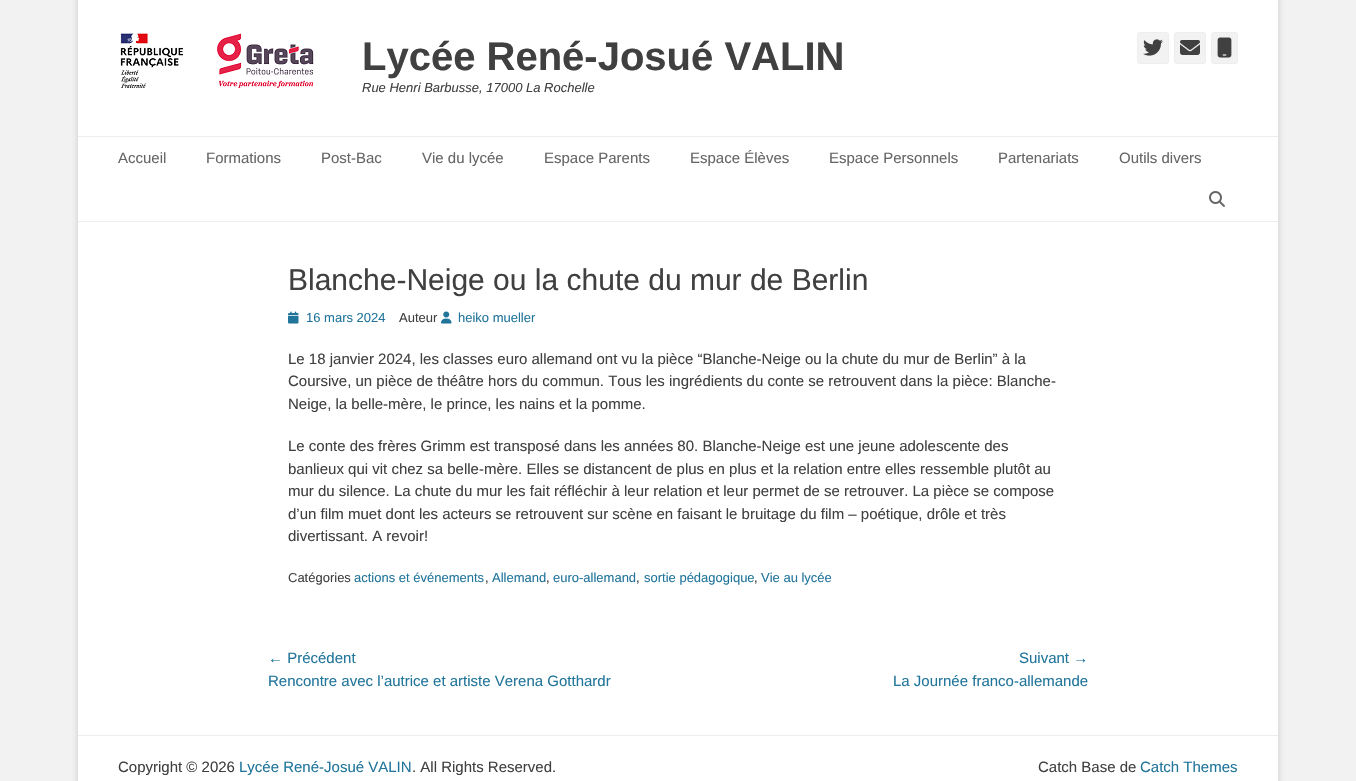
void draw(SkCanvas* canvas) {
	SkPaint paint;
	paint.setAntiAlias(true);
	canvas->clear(0xfff2f2f2);
	paint.setColor(0x4d646464);
	paint.setMaskFilter(SkMaskFilter::MakeBlur(kNormal_SkBlurStyle, 3));
	canvas->drawRoundRect(SkRect::MakeXYWH(78, -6, 1200, 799), 3, 3, paint);
	paint.setMaskFilter(nullptr);
	paint.setColor(0xffffffff);
	canvas->drawRect(SkRect::MakeXYWH(78, 0, 1200, 781), paint);
	canvas->drawImageRect(SkImages::DeferredFromEncodedData(SkData::MakeFromFileName("img1.png")), SkRect::MakeXYWH(120, 33, 194, 55), SkSamplingOptions());
	SkFont f1(fontMgr->matchFamilyStyle("Liberation Sans", SkFontStyle::Bold()), 40);
	f1.setSubpixel(true);
	paint.setColor(0xff404040);
	canvas->drawString("Lycée René-Josué VALIN", 362, 70, f1, paint);
	SkFont f2(fontMgr->matchFamilyStyle("Liberation Sans", SkFontStyle::Italic()), 13);
	f2.setSubpixel(true);
	canvas->drawString("Rue Henri Barbusse, 17000 La Rochelle", 362, 92, f2, paint);
	paint.setColor(0xfff2f2f2);
	canvas->drawRoundRect(SkRect::MakeXYWH(1137.5, 32.5, 31, 31), 2.5, 2.5, paint);
	paint.setStroke(true);
	paint.setStrokeWidth(1);
	paint.setColor(0xffeeeeee);
	canvas->drawRoundRect(SkRect::MakeXYWH(1137.5, 32.5, 31, 31), 2.5, 2.5, paint);
	canvas->drawImageRect(SkImages::DeferredFromEncodedData(SkData::MakeFromFileName("img2.png")), SkRect::MakeXYWH(1143, 39, 20, 17), SkSamplingOptions());
	paint.setStroke(false);
	paint.setColor(0xfff2f2f2);
	canvas->drawRoundRect(SkRect::MakeXYWH(1174.5, 32.5, 31, 31), 2.5, 2.5, paint);
	paint.setStroke(true);
	paint.setColor(0xffeeeeee);
	canvas->drawRoundRect(SkRect::MakeXYWH(1174.5, 32.5, 31, 31), 2.5, 2.5, paint);
	canvas->drawImageRect(SkImages::DeferredFromEncodedData(SkData::MakeFromFileName("img3.png")), SkRect::MakeXYWH(1180, 40, 20, 15), SkSamplingOptions());
	paint.setStroke(false);
	paint.setColor(0xfff2f2f2);
	canvas->drawRoundRect(SkRect::MakeXYWH(1211.5, 32.5, 26, 31), 2.5, 2.5, paint);
	paint.setStroke(true);
	paint.setColor(0xffeeeeee);
	canvas->drawRoundRect(SkRect::MakeXYWH(1211.5, 32.5, 26, 31), 2.5, 2.5, paint);
	canvas->drawImageRect(SkImages::DeferredFromEncodedData(SkData::MakeFromFileName("img4.png")), SkRect::MakeXYWH(1217, 37, 15, 21), SkSamplingOptions());
	paint.setStroke(false);
	canvas->drawRect(SkRect::MakeXYWH(78, 136, 1200, 1), paint);
	canvas->drawRect(SkRect::MakeXYWH(78, 221, 1200, 1), paint);
	SkFont f3(fontMgr->matchFamilyStyle("Liberation Sans", SkFontStyle::Normal()), 15);
	f3.setSubpixel(true);
	paint.setColor(0xff666666);
	canvas->drawString("Accueil", 118, 163, f3, paint);
	canvas->drawString("Formations", 206, 163, f3, paint);
	canvas->drawString("Post-Bac", 321, 163, f3, paint);
	canvas->drawString("Vie du lycée", 422, 163, f3, paint);
	canvas->drawString("Espace Parents", 544, 163, f3, paint);
	canvas->drawString("Espace Élèves", 690, 163, f3, paint);
	canvas->drawString("Espace Personnels", 829, 163, f3, paint);
	canvas->drawString("Partenariats", 998, 163, f3, paint);
	canvas->drawString("Outils divers", 1119, 163, f3, paint);
	canvas->drawImageRect(SkImages::DeferredFromEncodedData(SkData::MakeFromFileName("img5.png")), SkRect::MakeXYWH(1209, 191, 16, 16), SkSamplingOptions());
	SkFont f4(fontMgr->matchFamilyStyle("Liberation Sans", SkFontStyle::Normal()), 30);
	f4.setSubpixel(true);
	paint.setColor(0xff404040);
	canvas->drawString("Blanche-Neige ou la chute du mur de Berlin", 288, 290, f4, paint);
	canvas->drawImageRect(SkImages::DeferredFromEncodedData(SkData::MakeFromFileName("img6.png")), SkRect::MakeXYWH(288, 311, 11, 13), SkSamplingOptions());
	SkFont f5(fontMgr->matchFamilyStyle("Liberation Sans", SkFontStyle::Normal()), 13);
	f5.setSubpixel(true);
	paint.setColor(0xff21759b);
	canvas->drawString("16 mars 2024", 306, 322, f5, paint);
	paint.setColor(0xff404040);
	canvas->drawString("Auteur", 399, 322, f5, paint);
	canvas->drawImageRect(SkImages::DeferredFromEncodedData(SkData::MakeFromFileName("img7.png")), SkRect::MakeXYWH(441, 311, 11, 13), SkSamplingOptions());
	paint.setColor(0xff21759b);
	canvas->drawString("heiko mueller", 458, 322, f5, paint);
	paint.setColor(0xff404040);
	canvas->drawString("Le 18 janvier 2024, les classes euro allemand ont vu la pièce “Blanche-Neige ou la chute du mur de Berlin” à la", 288, 364, f3, paint);
	canvas->drawString("Coursive, un pièce de théâtre hors du commun. Tous les ingrédients du conte se retrouvent dans la pièce: Blanche-", 288, 386, f3, paint);
	canvas->drawString("Neige, la belle-mère, le prince, les nains et la pomme.", 288, 409, f3, paint);
	canvas->drawString("Le conte des frères Grimm est transposé dans les années 80. Blanche-Neige est une jeune adolescente des", 288, 451, f3, paint);
	canvas->drawString("banlieux qui vit chez sa belle-mère. Elles se distancent de plus en plus et la relation entre elles ressemble plutôt au", 288, 474, f3, paint);
	canvas->drawString("mur du silence. La chute du mur les fait réfléchir à leur relation et leur permet de se retrouver. La pièce se compose", 288, 496, f3, paint);
	canvas->drawString("d’un film muet dont les acteurs se retrouvent sur scène en faisant le bruitage du film – poétique, drôle et très", 288, 519, f3, paint);
	canvas->drawString("divertissant. A revoir!", 288, 541, f3, paint);
	canvas->drawString("Catégories", 288, 582, f5, paint);
	paint.setColor(0xff21759b);
	canvas->drawString("actions et événements", 354, 582, f5, paint);
	paint.setColor(0xff404040);
	canvas->drawString(",", 485, 582, f5, paint);
	paint.setColor(0xff21759b);
	canvas->drawString("Allemand", 492, 582, f5, paint);
	paint.setColor(0xff404040);
	canvas->drawString(",", 546, 582, f5, paint);
	paint.setColor(0xff21759b);
	canvas->drawString("euro-allemand", 553, 582, f5, paint);
	paint.setColor(0xff404040);
	canvas->drawString(",", 636, 582, f5, paint);
	paint.setColor(0xff21759b);
	canvas->drawString("sortie pédagogique", 644, 582, f5, paint);
	paint.setColor(0xff404040);
	canvas->drawString(",", 754, 582, f5, paint);
	paint.setColor(0xff21759b);
	canvas->drawString("Vie au lycée", 761, 582, f5, paint);
	canvas->drawString("← Précédent", 268, 663, f3, paint);
	canvas->drawString("Rencontre avec l’autrice et artiste Verena Gotthardr", 268, 686, f3, paint);
	canvas->drawString("Suivant →", 1019, 663, f3, paint);
	canvas->drawString("La Journée franco-allemande", 893, 686, f3, paint);
	paint.setColor(0xffeeeeee);
	canvas->drawRect(SkRect::MakeXYWH(78, 735, 1200, 1), paint);
	paint.setColor(0xff404040);
	canvas->drawString("Copyright © 2026", 118, 772, f3, paint);
	paint.setColor(0xff21759b);
	canvas->drawString("Lycée René-Josué VALIN", 239, 772, f3, paint);
	paint.setColor(0xff404040);
	canvas->drawString(". All Rights Reserved.", 412, 772, f3, paint);
	canvas->drawString("Catch Base de", 1038, 772, f3, paint);
	paint.setColor(0xff21759b);
	canvas->drawString("Catch Themes", 1140, 772, f3, paint);
}
